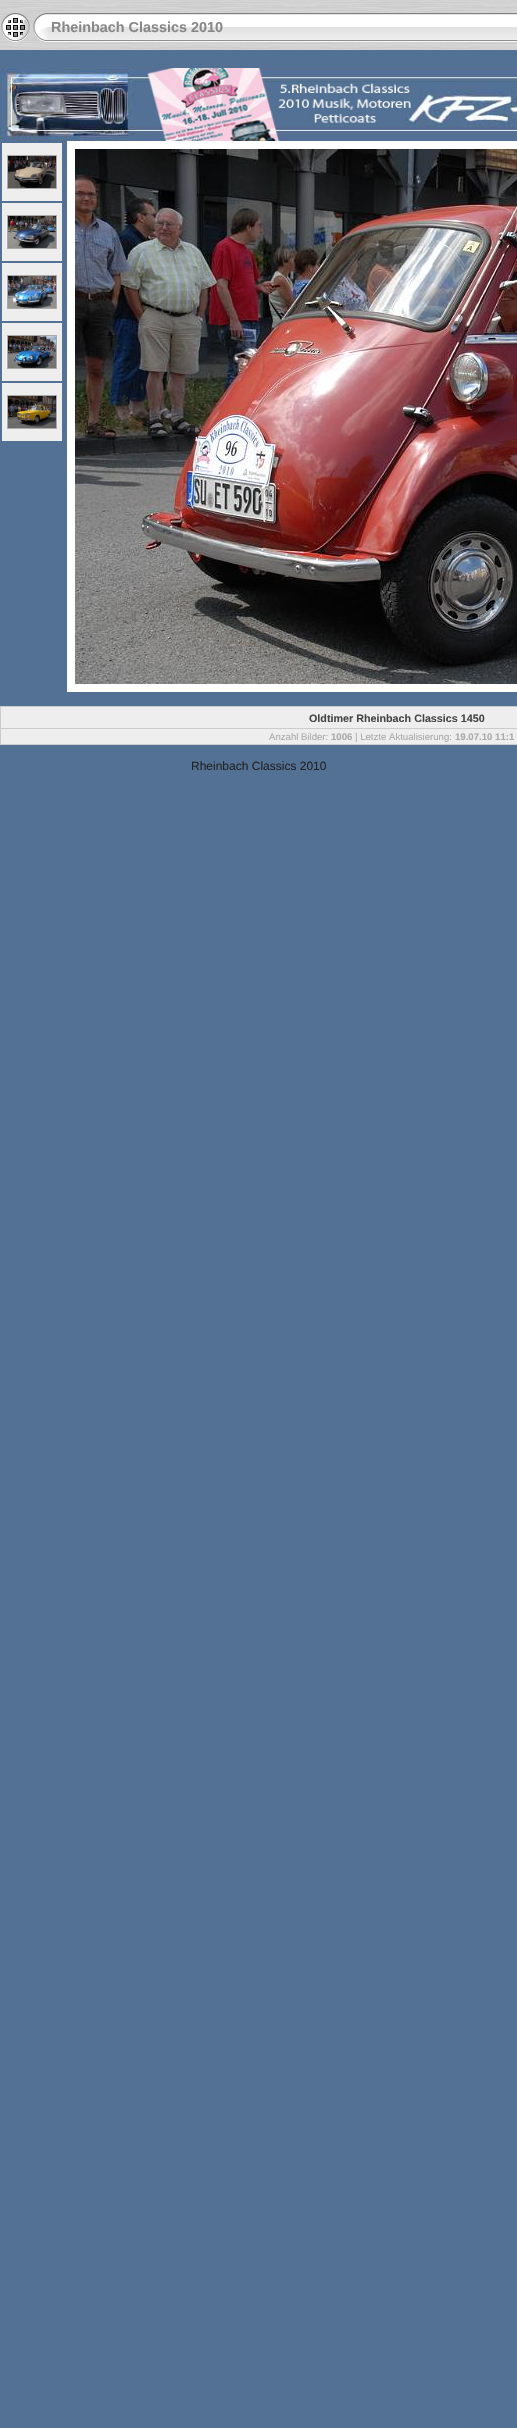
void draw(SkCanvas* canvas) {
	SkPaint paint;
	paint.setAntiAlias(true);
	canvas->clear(0xff537195);
	canvas->drawImageRect(SkImages::DeferredFromEncodedData(SkData::MakeFromFileName("img1.png")), SkRect::MakeXYWH(0, 0, 517, 50), SkSamplingOptions());
	canvas->drawImageRect(SkImages::DeferredFromEncodedData(SkData::MakeFromFileName("img2.png")), SkRect::MakeXYWH(1, 13, 29, 29), SkSamplingOptions());
	canvas->drawImageRect(SkImages::DeferredFromEncodedData(SkData::MakeFromFileName("img3.png")), SkRect::MakeXYWH(33, 13, 18, 29), SkSamplingOptions());
	canvas->drawImageRect(SkImages::DeferredFromEncodedData(SkData::MakeFromFileName("img4.png")), SkRect::MakeXYWH(51, 13, 466, 29), SkSamplingOptions());
	SkFont f1(fontMgr->matchFamilyStyle("Liberation Sans", SkFontStyle::Bold()), 14.4);
	f1.setSubpixel(true);
	paint.setColor(0xff888888);
	canvas->drawString("Rheinbach Classics 2010", 51, 32, f1, paint);
	canvas->drawImageRect(SkImages::DeferredFromEncodedData(SkData::MakeFromFileName("img5.png")), SkRect::MakeXYWH(0, 68, 517, 73), SkSamplingOptions());
	paint.setColor(0xffeeeeee);
	canvas->drawRect(SkRect::MakeXYWH(2, 143, 60, 58), paint);
	paint.setStroke(true);
	paint.setStrokeWidth(1);
	paint.setColor(0xffaaaaaa);
	canvas->drawRect(SkRect::MakeXYWH(7.5, 155.5, 49, 33), paint);
	canvas->drawImageRect(SkImages::DeferredFromEncodedData(SkData::MakeFromFileName("img6.png")), SkRect::MakeXYWH(8, 156, 48, 32), SkSamplingOptions());
	paint.setStroke(false);
	paint.setColor(0xffeeeeee);
	canvas->drawRect(SkRect::MakeXYWH(2, 203, 60, 58), paint);
	paint.setStroke(true);
	paint.setColor(0xffaaaaaa);
	canvas->drawRect(SkRect::MakeXYWH(7.5, 215.5, 49, 33), paint);
	canvas->drawImageRect(SkImages::DeferredFromEncodedData(SkData::MakeFromFileName("img7.png")), SkRect::MakeXYWH(8, 216, 48, 32), SkSamplingOptions());
	paint.setStroke(false);
	paint.setColor(0xffeeeeee);
	canvas->drawRect(SkRect::MakeXYWH(2, 263, 60, 58), paint);
	paint.setStroke(true);
	paint.setColor(0xffaaaaaa);
	canvas->drawRect(SkRect::MakeXYWH(7.5, 275.5, 49, 33), paint);
	canvas->drawImageRect(SkImages::DeferredFromEncodedData(SkData::MakeFromFileName("img8.png")), SkRect::MakeXYWH(8, 276, 48, 32), SkSamplingOptions());
	paint.setStroke(false);
	paint.setColor(0xffeeeeee);
	canvas->drawRect(SkRect::MakeXYWH(2, 323, 60, 58), paint);
	paint.setStroke(true);
	paint.setColor(0xffaaaaaa);
	canvas->drawRect(SkRect::MakeXYWH(7.5, 335.5, 49, 33), paint);
	canvas->drawImageRect(SkImages::DeferredFromEncodedData(SkData::MakeFromFileName("img9.png")), SkRect::MakeXYWH(8, 336, 48, 32), SkSamplingOptions());
	paint.setStroke(false);
	paint.setColor(0xffeeeeee);
	canvas->drawRect(SkRect::MakeXYWH(2, 383, 60, 58), paint);
	paint.setStroke(true);
	paint.setColor(0xffaaaaaa);
	canvas->drawRect(SkRect::MakeXYWH(7.5, 395.5, 49, 33), paint);
	canvas->drawImageRect(SkImages::DeferredFromEncodedData(SkData::MakeFromFileName("img10.png")), SkRect::MakeXYWH(8, 396, 48, 32), SkSamplingOptions());
	paint.setStrokeWidth(8);
	paint.setColor(0xffffffff);
	canvas->drawRect(SkRect::MakeXYWH(71, 145, 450, 543), paint);
	canvas->drawImageRect(SkImages::DeferredFromEncodedData(SkData::MakeFromFileName("img11.png")), SkRect::MakeXYWH(75, 149, 442, 535), SkSamplingOptions());
	paint.setStroke(false);
	paint.setColor(0xffeeeeee);
	canvas->drawRect(SkRect::MakeXYWH(1, 707, 516, 37), paint);
	paint.setColor(0xffcccccc);
	canvas->drawRect(SkRect::MakeXYWH(0, 706, 517, 1), paint);
	canvas->drawRect(SkRect::MakeXYWH(0, 744, 517, 1), paint);
	canvas->drawRect(SkRect::MakeXYWH(0, 706, 1, 39), paint);
	SkFont f2(fontMgr->matchFamilyStyle("Liberation Sans", SkFontStyle::Bold()), 10.75);
	f2.setSubpixel(true);
	paint.setColor(0xff444444);
	canvas->drawString("Oldtimer Rheinbach Classics 1450", 309, 722, f2, paint);
	paint.setColor(0xffcccccc);
	canvas->drawRect(SkRect::MakeXYWH(0, 728, 517, 1), paint);
	SkFont f3(fontMgr->matchFamilyStyle("Liberation Sans", SkFontStyle::Normal()), 9.6);
	f3.setSubpixel(true);
	paint.setColor(0xffaaaaaa);
	canvas->drawString("Anzahl Bilder:", 269, 740, f3, paint);
	SkFont f4(fontMgr->matchFamilyStyle("Liberation Sans", SkFontStyle::Bold()), 9.6);
	f4.setSubpixel(true);
	canvas->drawString("1006", 331, 740, f4, paint);
	canvas->drawString("| Letzte Aktualisierung:", 355, 740, f3, paint);
	canvas->drawString("19.07.10 11:1", 455, 740, f4, paint);
	SkFont f5(fontMgr->matchFamilyStyle("Liberation Sans", SkFontStyle::Normal()), 12);
	f5.setSubpixel(true);
	paint.setColor(0xff222222);
	canvas->drawString("Rheinbach Classics 2010", 191, 770, f5, paint);
}
